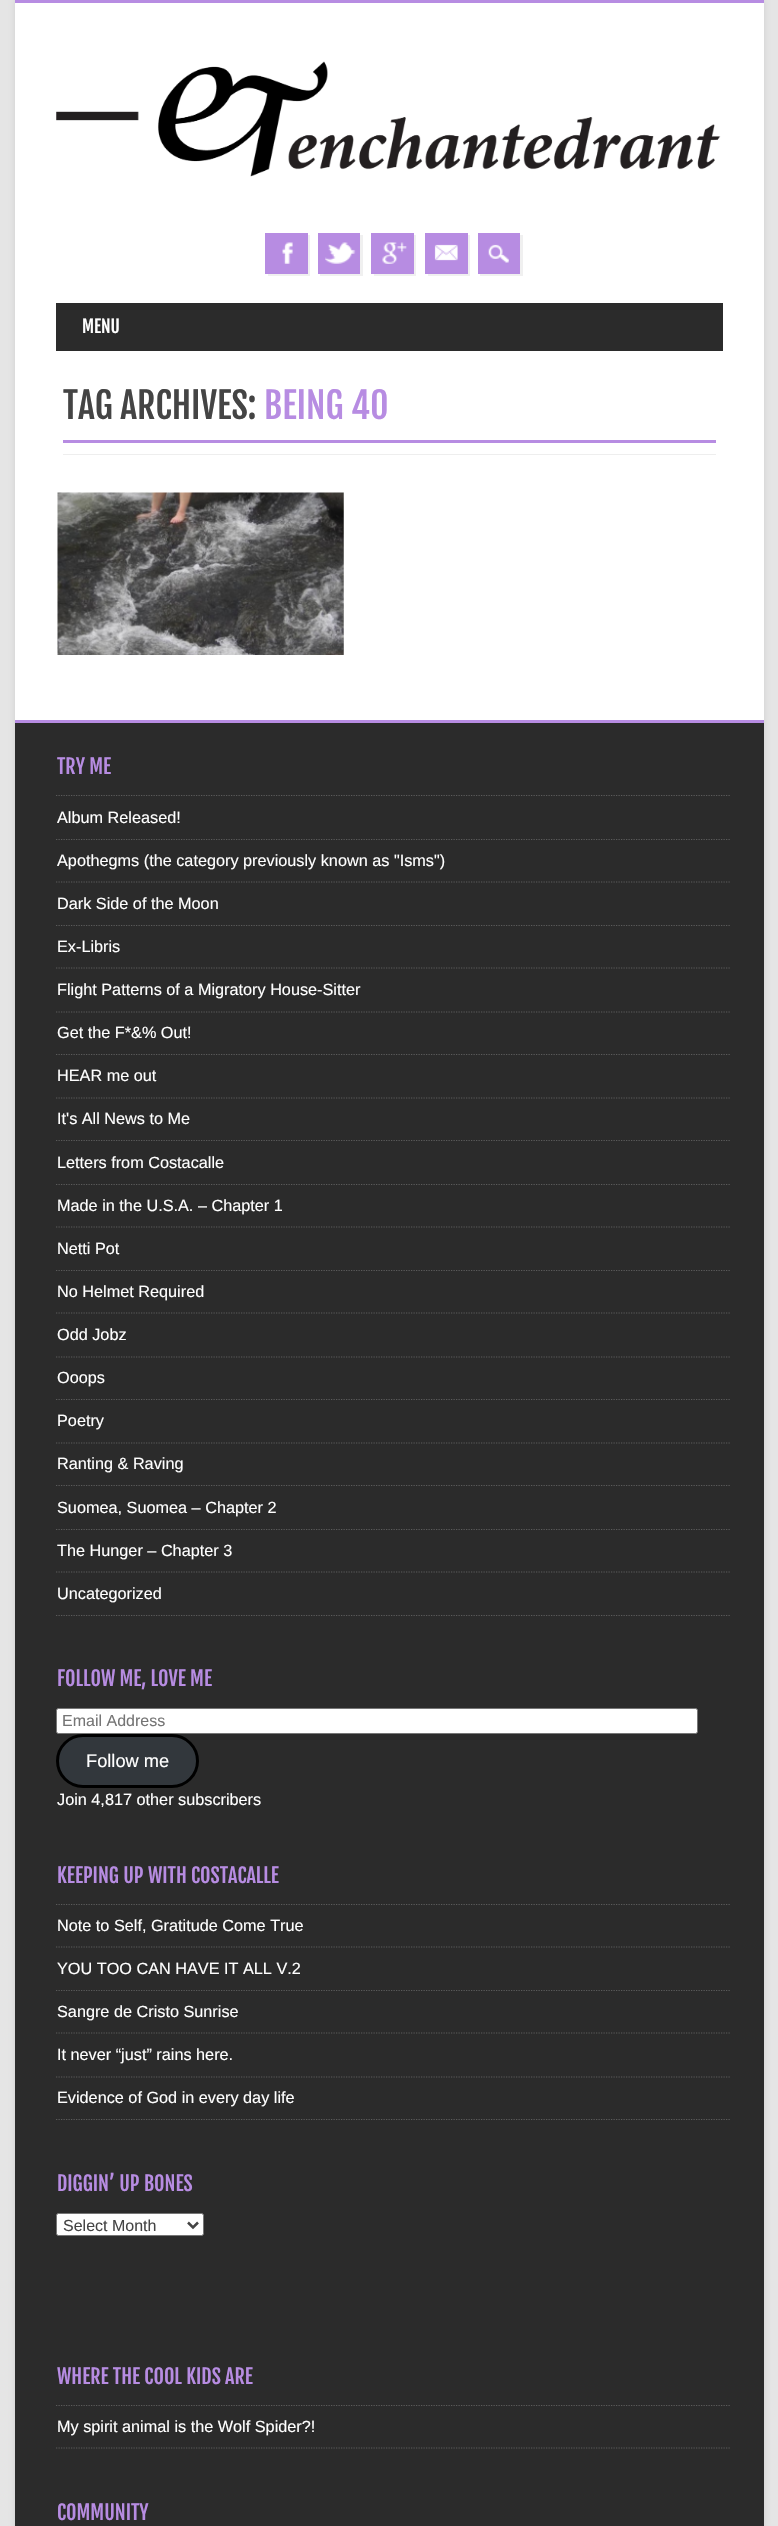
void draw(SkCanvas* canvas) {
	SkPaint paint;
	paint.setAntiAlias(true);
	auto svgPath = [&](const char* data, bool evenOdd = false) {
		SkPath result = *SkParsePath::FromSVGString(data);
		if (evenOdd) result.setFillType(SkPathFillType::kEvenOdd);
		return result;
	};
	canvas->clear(0xffe5e5e5);
	paint.setColor(0xffd0d0d0);
	paint.setMaskFilter(SkMaskFilter::MakeBlur(kNormal_SkBlurStyle, 3));
	canvas->drawRect(SkRect::MakeXYWH(15, 0, 749, 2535), paint);
	paint.setMaskFilter(nullptr);
	paint.setColor(0xffffffff);
	canvas->drawRect(SkRect::MakeXYWH(15, 3, 749, 717), paint);
	paint.setColor(0xffb78ce2);
	canvas->drawRect(SkRect::MakeXYWH(15, 0, 749, 3), paint);
	canvas->drawImageRect(SkImages::DeferredFromEncodedData(SkData::MakeFromFileName("img1.png")), SkRect::MakeXYWH(56, 61, 665, 116), SkSamplingOptions());
	paint.setColor(0xfff0f0f0);
	canvas->drawPath(svgPath("M268 274V276H310V235H308V274Z"), paint);
	paint.setColor(0xffb78ce2);
	canvas->drawRect(SkRect::MakeXYWH(265, 233, 43, 41), paint);
	canvas->drawImageRect(SkImages::DeferredFromEncodedData(SkData::MakeFromFileName("img2.png")), SkRect::MakeXYWH(282, 242, 11, 22), SkSamplingOptions());
	paint.setColor(0xfff0f0f0);
	canvas->drawPath(svgPath("M320 274V276H363V235H360V274Z"), paint);
	paint.setColor(0xffb78ce2);
	canvas->drawRect(SkRect::MakeXYWH(318, 233, 42, 41), paint);
	canvas->drawImageRect(SkImages::DeferredFromEncodedData(SkData::MakeFromFileName("img3.png")), SkRect::MakeXYWH(325, 242, 31, 22), SkSamplingOptions());
	paint.setColor(0xfff0f0f0);
	canvas->drawPath(svgPath("M374 274V276H416V235H414V274Z"), paint);
	paint.setColor(0xffb78ce2);
	canvas->drawRect(SkRect::MakeXYWH(371, 233, 43, 41), paint);
	canvas->drawImageRect(SkImages::DeferredFromEncodedData(SkData::MakeFromFileName("img4.png")), SkRect::MakeXYWH(382, 242, 25, 22), SkSamplingOptions());
	paint.setColor(0xfff0f0f0);
	canvas->drawPath(svgPath("M428 274V276H470V235H468V274Z"), paint);
	paint.setColor(0xffb78ce2);
	canvas->drawRect(SkRect::MakeXYWH(425, 233, 43, 41), paint);
	canvas->drawImageRect(SkImages::DeferredFromEncodedData(SkData::MakeFromFileName("img5.png")), SkRect::MakeXYWH(434, 244, 24, 17), SkSamplingOptions());
	paint.setColor(0xfff0f0f0);
	canvas->drawPath(svgPath("M480 274V276H523V235H520V274Z"), paint);
	paint.setColor(0xffb78ce2);
	canvas->drawRect(SkRect::MakeXYWH(478, 233, 42, 41), paint);
	canvas->drawImageRect(SkImages::DeferredFromEncodedData(SkData::MakeFromFileName("img6.png")), SkRect::MakeXYWH(488, 244, 21, 19), SkSamplingOptions());
	paint.setColor(0xff2b2b2b);
	canvas->drawRect(SkRect::MakeXYWH(56, 303, 667, 48), paint);
	SkFont f1(fontMgr->matchFamilyStyle("Fjalla One", SkFontStyle::Normal()), 17.5);
	f1.setSubpixel(true);
	paint.setColor(0xffffffff);
	canvas->drawString("MENU", 82, 333, f1, paint);
	paint.setColor(0xffeeeeee);
	canvas->drawRect(SkRect::MakeXYWH(63, 454, 653, 1), paint);
	SkFont f2(fontMgr->matchFamilyStyle("Fjalla One", SkFontStyle::Normal()), 35.75);
	f2.setSubpixel(true);
	paint.setColor(0xff444444);
	canvas->drawString("TAG ARCHIVES:", 63, 419, f2, paint);
	paint.setColor(0xffb78ce2);
	canvas->drawString("BEING 40", 264, 419, f2, paint);
	canvas->drawRect(SkRect::MakeXYWH(63, 440, 653, 3), paint);
	canvas->drawImageRect(SkImages::DeferredFromEncodedData(SkData::MakeFromFileName("img7.png")), SkRect::MakeXYWH(57, 492, 287, 163), SkSamplingOptions());
	paint.setColor(0xff2b2b2b);
	canvas->drawRect(SkRect::MakeXYWH(15, 723, 749, 1803), paint);
	paint.setColor(0xffb78ce2);
	canvas->drawRect(SkRect::MakeXYWH(15, 720, 749, 3), paint);
	SkFont f3(fontMgr->matchFamilyStyle("Fjalla One", SkFontStyle::Normal()), 20);
	f3.setSubpixel(true);
	canvas->drawString("TRY ME", 57, 774, f3, paint);
	paint.setStroke(true);
	paint.setStrokeWidth(1.2);
	paint.setColor(0xff5b5b5b);
	paint.setPathEffect(SkDashPathEffect::Make({{1.25f, 1.25f}}, 0));
	canvas->drawPath(svgPath("M56 795.5H731"), paint);
	paint.setPathEffect(nullptr);
	SkFont f4(fontMgr->matchFamilyStyle("Liberation Sans", SkFontStyle::Normal()), 16.25);
	f4.setSubpixel(true);
	paint.setStroke(false);
	paint.setColor(0xffffffff);
	canvas->drawString("Album Released!", 57, 823, f4, paint);
	paint.setStroke(true);
	paint.setColor(0xff5b5b5b);
	paint.setPathEffect(SkDashPathEffect::Make({{1.25f, 1.25f}}, 0));
	canvas->drawPath(svgPath("M56 839.5H731"), paint);
	paint.setPathEffect(nullptr);
	paint.setStroke(false);
	paint.setColor(0xffffffff);
	canvas->drawString("Apothegms (the category previously known as \"Isms\")", 57, 866, f4, paint);
	paint.setStroke(true);
	paint.setColor(0xff5b5b5b);
	paint.setPathEffect(SkDashPathEffect::Make({{1.25f, 1.25f}}, 0));
	canvas->drawPath(svgPath("M56 882H731"), paint);
	paint.setPathEffect(nullptr);
	paint.setStroke(false);
	paint.setColor(0xffffffff);
	canvas->drawString("Dark Side of the Moon", 57, 909, f4, paint);
	paint.setStroke(true);
	paint.setColor(0xff5b5b5b);
	paint.setPathEffect(SkDashPathEffect::Make({{1.25f, 1.25f}}, 0));
	canvas->drawPath(svgPath("M56 925.5H731"), paint);
	paint.setPathEffect(nullptr);
	paint.setStroke(false);
	paint.setColor(0xffffffff);
	canvas->drawString("Ex-Libris", 57, 952, f4, paint);
	paint.setStroke(true);
	paint.setColor(0xff5b5b5b);
	paint.setPathEffect(SkDashPathEffect::Make({{1.25f, 1.25f}}, 0));
	canvas->drawPath(svgPath("M56 968H731"), paint);
	paint.setPathEffect(nullptr);
	paint.setStroke(false);
	paint.setColor(0xffffffff);
	canvas->drawString("Flight Patterns of a Migratory House-Sitter", 57, 995, f4, paint);
	paint.setStroke(true);
	paint.setColor(0xff5b5b5b);
	paint.setPathEffect(SkDashPathEffect::Make({{1.25f, 1.25f}}, 0));
	canvas->drawPath(svgPath("M56 1012H731"), paint);
	paint.setPathEffect(nullptr);
	paint.setStroke(false);
	paint.setColor(0xffffffff);
	canvas->drawString("Get the F*&% Out!", 57, 1038, f4, paint);
	paint.setStroke(true);
	paint.setColor(0xff5b5b5b);
	paint.setPathEffect(SkDashPathEffect::Make({{1.25f, 1.25f}}, 0));
	canvas->drawPath(svgPath("M56 1054.5H731"), paint);
	paint.setPathEffect(nullptr);
	paint.setStroke(false);
	paint.setColor(0xffffffff);
	canvas->drawString("HEAR me out", 57, 1081, f4, paint);
	paint.setStroke(true);
	paint.setColor(0xff5b5b5b);
	paint.setPathEffect(SkDashPathEffect::Make({{1.25f, 1.25f}}, 0));
	canvas->drawPath(svgPath("M56 1098H731"), paint);
	paint.setPathEffect(nullptr);
	paint.setStroke(false);
	paint.setColor(0xffffffff);
	canvas->drawString("It's All News to Me", 57, 1124, f4, paint);
	paint.setStroke(true);
	paint.setColor(0xff5b5b5b);
	paint.setPathEffect(SkDashPathEffect::Make({{1.25f, 1.25f}}, 0));
	canvas->drawPath(svgPath("M56 1140.5H731"), paint);
	paint.setPathEffect(nullptr);
	paint.setStroke(false);
	paint.setColor(0xffffffff);
	canvas->drawString("Letters from Costacalle", 57, 1168, f4, paint);
	paint.setStroke(true);
	paint.setColor(0xff5b5b5b);
	paint.setPathEffect(SkDashPathEffect::Make({{1.25f, 1.25f}}, 0));
	canvas->drawPath(svgPath("M56 1184.5H731"), paint);
	paint.setPathEffect(nullptr);
	paint.setStroke(false);
	paint.setColor(0xffffffff);
	canvas->drawString("Made in the U.S.A. – Chapter 1", 57, 1211, f4, paint);
	paint.setStroke(true);
	paint.setColor(0xff5b5b5b);
	paint.setPathEffect(SkDashPathEffect::Make({{1.25f, 1.25f}}, 0));
	canvas->drawPath(svgPath("M56 1227H731"), paint);
	paint.setPathEffect(nullptr);
	paint.setStroke(false);
	paint.setColor(0xffffffff);
	canvas->drawString("Netti Pot", 57, 1254, f4, paint);
	paint.setStroke(true);
	paint.setColor(0xff5b5b5b);
	paint.setPathEffect(SkDashPathEffect::Make({{1.25f, 1.25f}}, 0));
	canvas->drawPath(svgPath("M56 1270.5H731"), paint);
	paint.setPathEffect(nullptr);
	paint.setStroke(false);
	paint.setColor(0xffffffff);
	canvas->drawString("No Helmet Required", 57, 1297, f4, paint);
	paint.setStroke(true);
	paint.setColor(0xff5b5b5b);
	paint.setPathEffect(SkDashPathEffect::Make({{1.25f, 1.25f}}, 0));
	canvas->drawPath(svgPath("M56 1313H731"), paint);
	paint.setPathEffect(nullptr);
	paint.setStroke(false);
	paint.setColor(0xffffffff);
	canvas->drawString("Odd Jobz", 57, 1340, f4, paint);
	paint.setStroke(true);
	paint.setColor(0xff5b5b5b);
	paint.setPathEffect(SkDashPathEffect::Make({{1.25f, 1.25f}}, 0));
	canvas->drawPath(svgPath("M56 1357H731"), paint);
	paint.setPathEffect(nullptr);
	paint.setStroke(false);
	paint.setColor(0xffffffff);
	canvas->drawString("Ooops", 57, 1383, f4, paint);
	paint.setStroke(true);
	paint.setColor(0xff5b5b5b);
	paint.setPathEffect(SkDashPathEffect::Make({{1.25f, 1.25f}}, 0));
	canvas->drawPath(svgPath("M56 1399.5H731"), paint);
	paint.setPathEffect(nullptr);
	paint.setStroke(false);
	paint.setColor(0xffffffff);
	canvas->drawString("Poetry", 57, 1426, f4, paint);
	paint.setStroke(true);
	paint.setColor(0xff5b5b5b);
	paint.setPathEffect(SkDashPathEffect::Make({{1.25f, 1.25f}}, 0));
	canvas->drawPath(svgPath("M56 1443H731"), paint);
	paint.setPathEffect(nullptr);
	paint.setStroke(false);
	paint.setColor(0xffffffff);
	canvas->drawString("Ranting & Raving", 57, 1469, f4, paint);
	paint.setStroke(true);
	paint.setColor(0xff5b5b5b);
	paint.setPathEffect(SkDashPathEffect::Make({{1.25f, 1.25f}}, 0));
	canvas->drawPath(svgPath("M56 1485.5H731"), paint);
	paint.setPathEffect(nullptr);
	paint.setStroke(false);
	paint.setColor(0xffffffff);
	canvas->drawString("Suomea, Suomea – Chapter 2", 57, 1513, f4, paint);
	paint.setStroke(true);
	paint.setColor(0xff5b5b5b);
	paint.setPathEffect(SkDashPathEffect::Make({{1.25f, 1.25f}}, 0));
	canvas->drawPath(svgPath("M56 1529.5H731"), paint);
	paint.setPathEffect(nullptr);
	paint.setStroke(false);
	paint.setColor(0xffffffff);
	canvas->drawString("The Hunger – Chapter 3", 57, 1556, f4, paint);
	paint.setStroke(true);
	paint.setColor(0xff5b5b5b);
	paint.setPathEffect(SkDashPathEffect::Make({{1.25f, 1.25f}}, 0));
	canvas->drawPath(svgPath("M56 1572H731"), paint);
	paint.setPathEffect(nullptr);
	paint.setPathEffect(SkDashPathEffect::Make({{1.25f, 1.25f}}, 0));
	canvas->drawPath(svgPath("M56 1615.5H731"), paint);
	paint.setPathEffect(nullptr);
	paint.setStroke(false);
	paint.setColor(0xffffffff);
	canvas->drawString("Uncategorized", 57, 1599, f4, paint);
	paint.setColor(0xffb78ce2);
	canvas->drawString("FOLLOW ME, LOVE ME", 57, 1686, f3, paint);
	paint.setColor(0xffffffff);
	canvas->drawRoundRect(SkRect::MakeXYWH(56.5, 1708.5, 641, 25), 2, 2, paint);
	paint.setStroke(true);
	paint.setStrokeWidth(1);
	paint.setColor(0xff767676);
	canvas->drawRoundRect(SkRect::MakeXYWH(56.5, 1708.5, 641, 25), 2, 2, paint);
	SkFont f5(fontMgr->matchFamilyStyle("Liberation Sans", SkFontStyle::Normal()), 16);
	f5.setSubpixel(true);
	paint.setStroke(false);
	paint.setColor(0xff757575);
	canvas->drawString("Email Address", 62, 1726, f5, paint);
	paint.setColor(0xff32373c);
	canvas->drawRoundRect(SkRect::MakeXYWH(57.5, 1735.5, 140, 51), 25.5, 25.5, paint);
	paint.setStroke(true);
	paint.setStrokeWidth(3);
	paint.setColor(0xff000000);
	canvas->drawRoundRect(SkRect::MakeXYWH(57.5, 1735.5, 140, 51), 25.5, 25.5, paint);
	SkFont f6(fontMgr->matchFamilyStyle("Liberation Sans", SkFontStyle::Normal()), 18.25);
	f6.setSubpixel(true);
	paint.setStroke(false);
	paint.setColor(0xffffffff);
	canvas->drawString("Follow me", 86, 1767, f6, paint);
	canvas->drawString("Join 4,817 other subscribers", 57, 1805, f4, paint);
	paint.setColor(0xffb78ce2);
	canvas->drawString("KEEPING UP WITH COSTACALLE", 57, 1883, f3, paint);
	paint.setStroke(true);
	paint.setStrokeWidth(1.2);
	paint.setColor(0xff5b5b5b);
	paint.setPathEffect(SkDashPathEffect::Make({{1.25f, 1.25f}}, 0));
	canvas->drawPath(svgPath("M56 1904.5H731"), paint);
	paint.setPathEffect(nullptr);
	paint.setStroke(false);
	paint.setColor(0xffffffff);
	canvas->drawString("Note to Self, Gratitude Come True", 57, 1931, f4, paint);
	paint.setStroke(true);
	paint.setColor(0xff5b5b5b);
	paint.setPathEffect(SkDashPathEffect::Make({{1.25f, 1.25f}}, 0));
	canvas->drawPath(svgPath("M56 1947H731"), paint);
	paint.setPathEffect(nullptr);
	paint.setStroke(false);
	paint.setColor(0xffffffff);
	canvas->drawString("YOU TOO CAN HAVE IT ALL V.2", 57, 1974, f4, paint);
	paint.setStroke(true);
	paint.setColor(0xff5b5b5b);
	paint.setPathEffect(SkDashPathEffect::Make({{1.25f, 1.25f}}, 0));
	canvas->drawPath(svgPath("M56 1990.5H731"), paint);
	paint.setPathEffect(nullptr);
	paint.setStroke(false);
	paint.setColor(0xffffffff);
	canvas->drawString("Sangre de Cristo Sunrise", 57, 2017, f4, paint);
	paint.setStroke(true);
	paint.setColor(0xff5b5b5b);
	paint.setPathEffect(SkDashPathEffect::Make({{1.25f, 1.25f}}, 0));
	canvas->drawPath(svgPath("M56 2033H731"), paint);
	paint.setPathEffect(nullptr);
	paint.setStroke(false);
	paint.setColor(0xffffffff);
	canvas->drawString("It never “just” rains here.", 57, 2060, f4, paint);
	paint.setStroke(true);
	paint.setColor(0xff5b5b5b);
	paint.setPathEffect(SkDashPathEffect::Make({{1.25f, 1.25f}}, 0));
	canvas->drawPath(svgPath("M56 2077H731"), paint);
	paint.setPathEffect(nullptr);
	paint.setPathEffect(SkDashPathEffect::Make({{1.25f, 1.25f}}, 0));
	canvas->drawPath(svgPath("M56 2119.5H731"), paint);
	paint.setPathEffect(nullptr);
	paint.setStroke(false);
	paint.setColor(0xffffffff);
	canvas->drawString("Evidence of God in every day life", 57, 2103, f4, paint);
	paint.setColor(0xffb78ce2);
	canvas->drawString("DIGGIN’ UP BONES", 57, 2191, f3, paint);
	paint.setColor(0xffffffff);
	canvas->drawRoundRect(SkRect::MakeXYWH(56.5, 2213.5, 147, 22), 2, 2, paint);
	paint.setStroke(true);
	paint.setStrokeWidth(1);
	paint.setColor(0xff767676);
	canvas->drawRoundRect(SkRect::MakeXYWH(56.5, 2213.5, 147, 22), 2, 2, paint);
	paint.setStrokeWidth(2.5);
	paint.setColor(0xff444444);
	canvas->drawPath(svgPath("M188 2222.5L193 2227.5L198 2222.5"), paint);
	paint.setStroke(false);
	canvas->drawString("Select Month", 63, 2231, f5, paint);
	paint.setColor(0xffb78ce2);
	canvas->drawString("WHERE THE COOL KIDS ARE", 57, 2384, f3, paint);
	paint.setStroke(true);
	paint.setStrokeWidth(1.2);
	paint.setColor(0xff5b5b5b);
	paint.setPathEffect(SkDashPathEffect::Make({{1.25f, 1.25f}}, 0));
	canvas->drawPath(svgPath("M56 2405.5H731"), paint);
	paint.setPathEffect(nullptr);
	paint.setPathEffect(SkDashPathEffect::Make({{1.25f, 1.25f}}, 0));
	canvas->drawPath(svgPath("M56 2448H731"), paint);
	paint.setPathEffect(nullptr);
	paint.setStroke(false);
	paint.setColor(0xffffffff);
	canvas->drawString("My spirit animal is the Wolf Spider?!", 57, 2432, f4, paint);
	paint.setColor(0xffb78ce2);
	canvas->drawString("COMMUNITY", 57, 2520, f3, paint);
}
